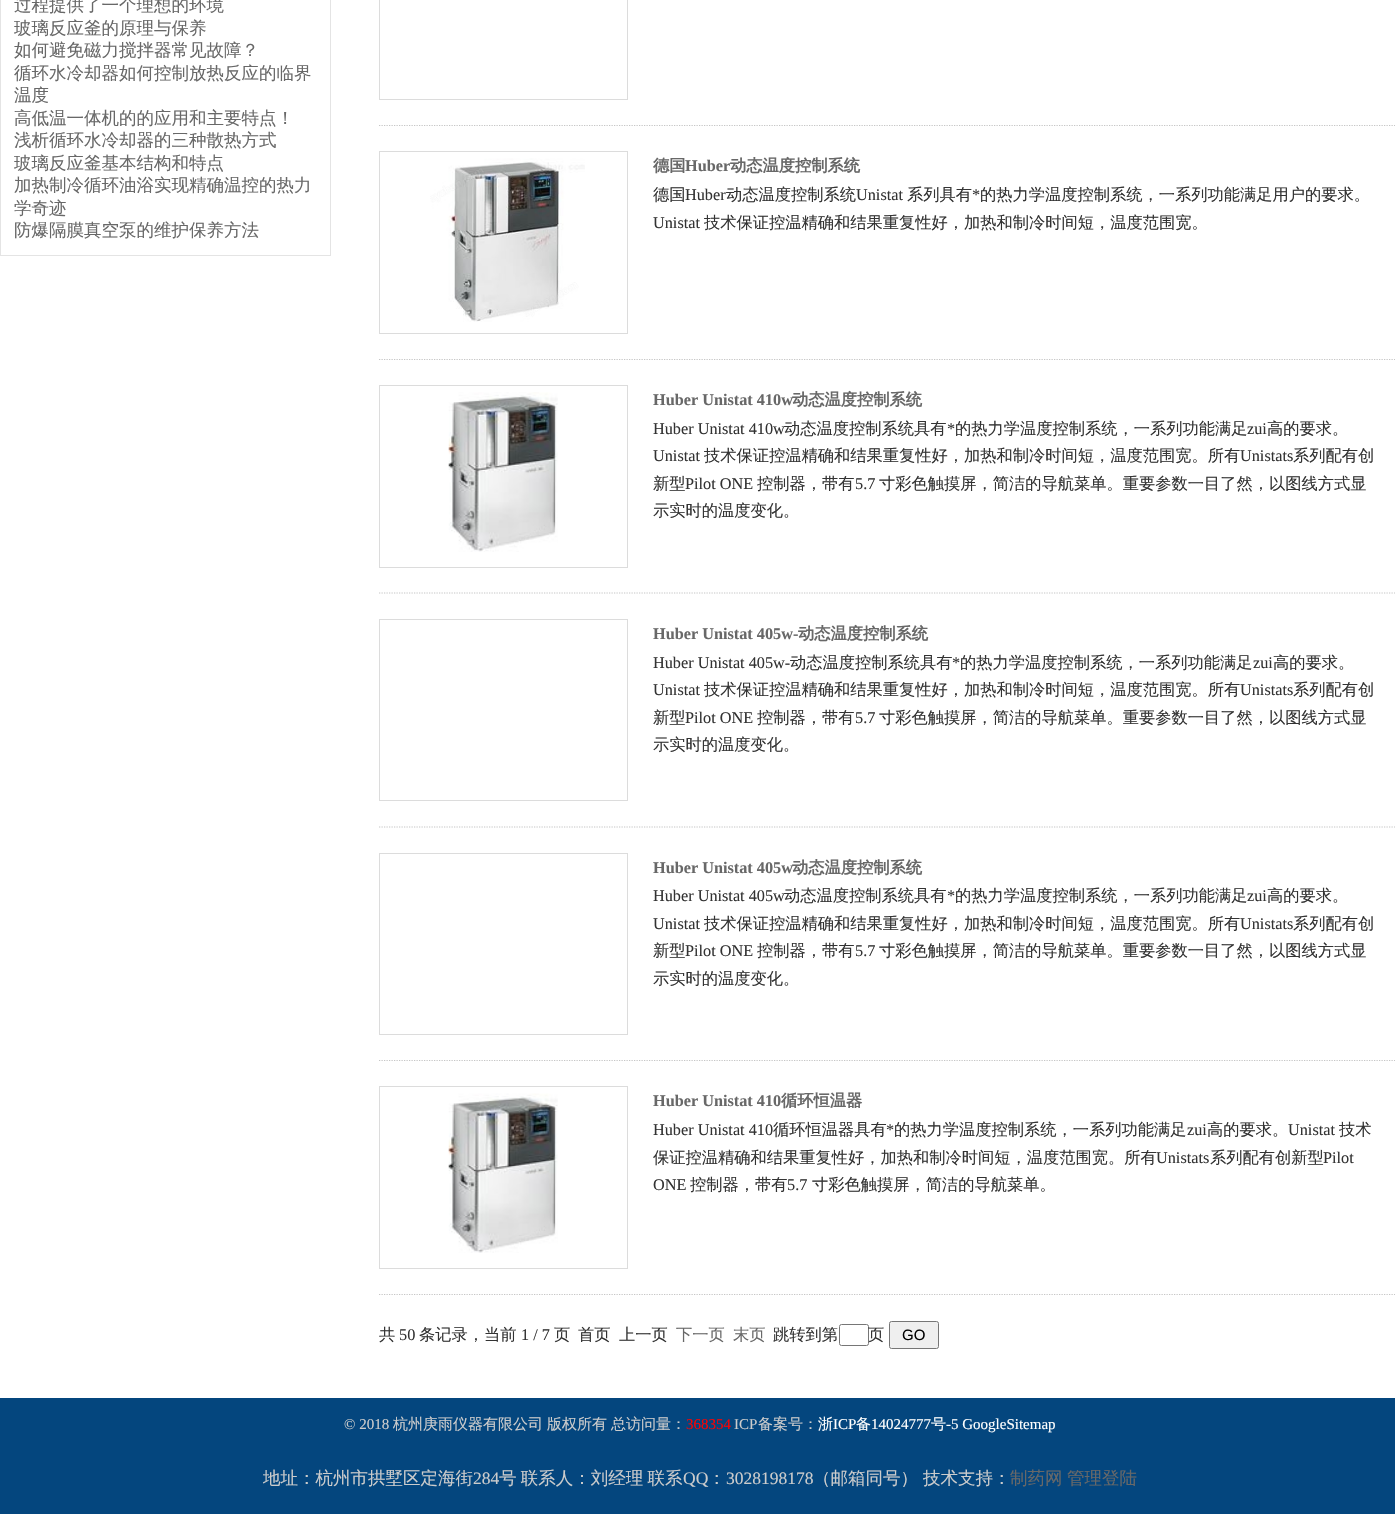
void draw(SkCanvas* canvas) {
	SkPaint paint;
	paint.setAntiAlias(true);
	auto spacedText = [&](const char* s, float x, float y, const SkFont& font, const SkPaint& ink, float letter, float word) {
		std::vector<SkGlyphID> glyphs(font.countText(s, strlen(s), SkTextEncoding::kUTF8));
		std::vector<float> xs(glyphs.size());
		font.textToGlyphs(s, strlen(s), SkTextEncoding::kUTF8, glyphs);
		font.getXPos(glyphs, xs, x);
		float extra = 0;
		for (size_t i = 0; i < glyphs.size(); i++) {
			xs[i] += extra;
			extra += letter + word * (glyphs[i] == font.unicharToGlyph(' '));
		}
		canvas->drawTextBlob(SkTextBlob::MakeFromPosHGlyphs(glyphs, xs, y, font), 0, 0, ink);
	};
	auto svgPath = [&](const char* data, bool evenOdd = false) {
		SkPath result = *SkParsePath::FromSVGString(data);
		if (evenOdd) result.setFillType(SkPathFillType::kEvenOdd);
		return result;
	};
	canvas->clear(0xffffffff);
	paint.setColor(0xffe4e4e4);
	canvas->drawPath(svgPath("M331-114V256L330 255V-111Z"), paint);
	canvas->drawRect(SkRect::MakeXYWH(0, 255, 331, 1), paint);
	canvas->drawPath(svgPath("M0 256V-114L1-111V255Z"), paint);
	SkFont f1(fontMgr->matchFamilyStyle("WenQuanYi Zen Hei", SkFontStyle(500, SkFontStyle::kNormal_Width, SkFontStyle::kUpright_Slant)), 17.5);
	f1.setSubpixel(true);
	paint.setColor(0xff686868);
	canvas->drawString("过程提供了一个理想的环境", 14, 11, f1, paint);
	canvas->drawString("玻璃反应釜的原理与保养", 14, 34, f1, paint);
	canvas->drawString("如何避免磁力搅拌器常见故障？", 14, 56, f1, paint);
	canvas->drawString("循环水冷却器如何控制放热反应的临界", 14, 79, f1, paint);
	canvas->drawString("温度", 14, 101, f1, paint);
	canvas->drawString("高低温一体机的的应用和主要特点！", 14, 124, f1, paint);
	canvas->drawString("浅析循环水冷却器的三种散热方式", 14, 146, f1, paint);
	canvas->drawString("玻璃反应釜基本结构和特点", 14, 169, f1, paint);
	canvas->drawString("加热制冷循环油浴实现精确温控的热力", 14, 191, f1, paint);
	canvas->drawString("学奇迹", 14, 214, f1, paint);
	canvas->drawString("防爆隔膜真空泵的维护保养方法", 14, 236, f1, paint);
	paint.setStroke(true);
	paint.setStrokeWidth(1.2);
	paint.setColor(0xffc6c6c6);
	paint.setPathEffect(SkDashPathEffect::Make({{1.25f, 1.25f}}, 0));
	canvas->drawPath(svgPath("M379 125.5H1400"), paint);
	paint.setPathEffect(nullptr);
	paint.setStrokeWidth(1);
	paint.setColor(0xffdcdcdc);
	canvas->drawRect(SkRect::MakeXYWH(379.5, -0.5, 248, 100), paint);
	paint.setStrokeWidth(1.2);
	paint.setColor(0xffc6c6c6);
	paint.setPathEffect(SkDashPathEffect::Make({{1.25f, 1.25f}}, 0));
	canvas->drawPath(svgPath("M379 359.5H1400"), paint);
	paint.setPathEffect(nullptr);
	paint.setStrokeWidth(1);
	paint.setColor(0xffdcdcdc);
	canvas->drawRect(SkRect::MakeXYWH(379.5, 151.5, 248, 182), paint);
	canvas->drawImageRect(SkImages::DeferredFromEncodedData(SkData::MakeFromFileName("img1.png")), SkRect::MakeXYWH(430, 158, 155, 164), SkSamplingOptions());
	SkFont f2(fontMgr->matchFamilyStyle("WenQuanYi Zen Hei", SkFontStyle::Bold()), 16.25);
	f2.setSubpixel(true);
	paint.setStroke(false);
	paint.setColor(0xff686868);
	canvas->drawString("德国", 653, 171, f2, paint);
	SkFont f3(fontMgr->matchFamilyStyle("Liberation Serif", SkFontStyle::Bold()), 16.25);
	f3.setSubpixel(true);
	canvas->drawString("Huber", 685, 171, f3, paint);
	canvas->drawString("动态温度控制系统", 730, 171, f2, paint);
	SkFont f4(fontMgr->matchFamilyStyle("WenQuanYi Zen Hei", SkFontStyle(500, SkFontStyle::kNormal_Width, SkFontStyle::kUpright_Slant)), 16.25);
	f4.setSubpixel(true);
	paint.setColor(0xff333333);
	canvas->drawString("德国", 653, 200, f4, paint);
	SkFont f5(fontMgr->matchFamilyStyle("Liberation Serif", SkFontStyle::Normal()), 16.25);
	f5.setSubpixel(true);
	canvas->drawString("Huber", 685, 200, f5, paint);
	canvas->drawString("动态温度控制系统", 726, 200, f4, paint);
	canvas->drawString("Unistat", 856, 200, f5, paint);
	canvas->drawString("系列具有", 907, 200, f4, paint);
	canvas->drawString("*", 972, 200, f5, paint);
	canvas->drawString("的热力学温度控制系统，一系列功能满足用户的要求。", 980, 200, f4, paint);
	canvas->drawString("Unistat", 653, 228, f5, paint);
	canvas->drawString("技术保证控温精确和结果重复性好，加热和制冷时间短，温度范围宽。", 704, 228, f4, paint);
	paint.setStroke(true);
	paint.setStrokeWidth(1.2);
	paint.setColor(0xffc6c6c6);
	paint.setPathEffect(SkDashPathEffect::Make({{1.25f, 1.25f}}, 0));
	canvas->drawPath(svgPath("M379 593H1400"), paint);
	paint.setPathEffect(nullptr);
	paint.setStrokeWidth(1);
	paint.setColor(0xffdcdcdc);
	canvas->drawRect(SkRect::MakeXYWH(379.5, 385.5, 248, 182), paint);
	canvas->drawImageRect(SkImages::DeferredFromEncodedData(SkData::MakeFromFileName("img2.png")), SkRect::MakeXYWH(448, 392, 110, 160), SkSamplingOptions());
	paint.setStroke(false);
	paint.setColor(0xff686868);
	canvas->drawString("Huber Unistat 410w", 653, 405, f3, paint);
	canvas->drawString("动态温度控制系统", 792, 405, f2, paint);
	paint.setColor(0xff333333);
	canvas->drawString("Huber Unistat 410w", 653, 434, f5, paint);
	canvas->drawString("动态温度控制系统具有", 784, 434, f4, paint);
	canvas->drawString("*", 947, 434, f5, paint);
	canvas->drawString("的热力学温度控制系统，一系列功能满足", 955, 434, f4, paint);
	canvas->drawString("zui", 1247, 434, f5, paint);
	canvas->drawString("高的要求。", 1267, 434, f4, paint);
	canvas->drawString("Unistat", 653, 461, f5, paint);
	canvas->drawString("技术保证控温精确和结果重复性好，加热和制冷时间短，温度范围宽。所有", 704, 461, f4, paint);
	canvas->drawString("Unistats", 1240, 461, f5, paint);
	canvas->drawString("系列配有创", 1293, 461, f4, paint);
	canvas->drawString("新型", 653, 489, f4, paint);
	canvas->drawString("Pilot ONE", 685, 489, f5, paint);
	canvas->drawString("控制器，带有", 757, 489, f4, paint);
	canvas->drawString("5.7", 855, 489, f5, paint);
	canvas->drawString("寸彩色触摸屏，简洁的导航菜单。重要参数一目了然，以图线方式显", 879, 489, f4, paint);
	canvas->drawString("示实时的温度变化。", 653, 516, f4, paint);
	paint.setStroke(true);
	paint.setStrokeWidth(1.2);
	paint.setColor(0xffc6c6c6);
	paint.setPathEffect(SkDashPathEffect::Make({{1.25f, 1.25f}}, 0));
	canvas->drawPath(svgPath("M379 827H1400"), paint);
	paint.setPathEffect(nullptr);
	paint.setStrokeWidth(1);
	paint.setColor(0xffdcdcdc);
	canvas->drawRect(SkRect::MakeXYWH(379.5, 619.5, 248, 181), paint);
	paint.setStroke(false);
	paint.setColor(0xff686868);
	canvas->drawString("Huber Unistat 405w-", 653, 639, f3, paint);
	canvas->drawString("动态温度控制系统", 798, 639, f2, paint);
	paint.setColor(0xff333333);
	canvas->drawString("Huber Unistat 405w-", 653, 668, f5, paint);
	canvas->drawString("动态温度控制系统具有", 790, 668, f4, paint);
	canvas->drawString("*", 952, 668, f5, paint);
	canvas->drawString("的热力学温度控制系统，一系列功能满足", 960, 668, f4, paint);
	canvas->drawString("zui", 1253, 668, f5, paint);
	canvas->drawString("高的要求。", 1273, 668, f4, paint);
	canvas->drawString("Unistat", 653, 695, f5, paint);
	canvas->drawString("技术保证控温精确和结果重复性好，加热和制冷时间短，温度范围宽。所有", 704, 695, f4, paint);
	canvas->drawString("Unistats", 1240, 695, f5, paint);
	canvas->drawString("系列配有创", 1293, 695, f4, paint);
	canvas->drawString("新型", 653, 723, f4, paint);
	canvas->drawString("Pilot ONE", 685, 723, f5, paint);
	canvas->drawString("控制器，带有", 757, 723, f4, paint);
	canvas->drawString("5.7", 855, 723, f5, paint);
	canvas->drawString("寸彩色触摸屏，简洁的导航菜单。重要参数一目了然，以图线方式显", 879, 723, f4, paint);
	canvas->drawString("示实时的温度变化。", 653, 750, f4, paint);
	paint.setStroke(true);
	paint.setStrokeWidth(1.2);
	paint.setColor(0xffc6c6c6);
	paint.setPathEffect(SkDashPathEffect::Make({{1.25f, 1.25f}}, 0));
	canvas->drawPath(svgPath("M379 1060.5H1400"), paint);
	paint.setPathEffect(nullptr);
	paint.setStrokeWidth(1);
	paint.setColor(0xffdcdcdc);
	canvas->drawRect(SkRect::MakeXYWH(379.5, 853.5, 248, 181), paint);
	paint.setStroke(false);
	paint.setColor(0xff686868);
	canvas->drawString("Huber Unistat 405w", 653, 873, f3, paint);
	canvas->drawString("动态温度控制系统", 792, 873, f2, paint);
	paint.setColor(0xff333333);
	canvas->drawString("Huber Unistat 405w", 653, 901, f5, paint);
	canvas->drawString("动态温度控制系统具有", 784, 901, f4, paint);
	canvas->drawString("*", 947, 901, f5, paint);
	canvas->drawString("的热力学温度控制系统，一系列功能满足", 955, 901, f4, paint);
	canvas->drawString("zui", 1247, 901, f5, paint);
	canvas->drawString("高的要求。", 1267, 901, f4, paint);
	canvas->drawString("Unistat", 653, 929, f5, paint);
	canvas->drawString("技术保证控温精确和结果重复性好，加热和制冷时间短，温度范围宽。所有", 704, 929, f4, paint);
	canvas->drawString("Unistats", 1240, 929, f5, paint);
	canvas->drawString("系列配有创", 1293, 929, f4, paint);
	canvas->drawString("新型", 653, 956, f4, paint);
	canvas->drawString("Pilot ONE", 685, 956, f5, paint);
	canvas->drawString("控制器，带有", 757, 956, f4, paint);
	canvas->drawString("5.7", 855, 956, f5, paint);
	canvas->drawString("寸彩色触摸屏，简洁的导航菜单。重要参数一目了然，以图线方式显", 879, 956, f4, paint);
	canvas->drawString("示实时的温度变化。", 653, 984, f4, paint);
	paint.setStroke(true);
	paint.setStrokeWidth(1.2);
	paint.setColor(0xffc6c6c6);
	paint.setPathEffect(SkDashPathEffect::Make({{1.25f, 1.25f}}, 0));
	canvas->drawPath(svgPath("M379 1294.5H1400"), paint);
	paint.setPathEffect(nullptr);
	paint.setStrokeWidth(1);
	paint.setColor(0xffdcdcdc);
	canvas->drawRect(SkRect::MakeXYWH(379.5, 1086.5, 248, 182), paint);
	canvas->drawImageRect(SkImages::DeferredFromEncodedData(SkData::MakeFromFileName("img3.png")), SkRect::MakeXYWH(448, 1093, 110, 160), SkSamplingOptions());
	paint.setStroke(false);
	paint.setColor(0xff686868);
	canvas->drawString("Huber Unistat 410", 653, 1106, f3, paint);
	canvas->drawString("循环恒温器", 781, 1106, f2, paint);
	paint.setColor(0xff333333);
	canvas->drawString("Huber Unistat 410", 653, 1135, f5, paint);
	canvas->drawString("循环恒温器具有", 773, 1135, f4, paint);
	canvas->drawString("*", 886, 1135, f5, paint);
	canvas->drawString("的热力学温度控制系统，一系列功能满足", 894, 1135, f4, paint);
	canvas->drawString("zui", 1187, 1135, f5, paint);
	canvas->drawString("高的要求。", 1207, 1135, f4, paint);
	canvas->drawString("Unistat", 1288, 1135, f5, paint);
	canvas->drawString("技术", 1339, 1135, f4, paint);
	canvas->drawString("保证控温精确和结果重复性好，加热和制冷时间短，温度范围宽。所有", 653, 1163, f4, paint);
	canvas->drawString("Unistats", 1156, 1163, f5, paint);
	canvas->drawString("系列配有创新型", 1210, 1163, f4, paint);
	canvas->drawString("Pilot", 1323, 1163, f5, paint);
	canvas->drawString("ONE", 653, 1190, f5, paint);
	canvas->drawString("控制器，带有", 690, 1190, f4, paint);
	canvas->drawString("5.7", 787, 1190, f5, paint);
	canvas->drawString("寸彩色触摸屏，简洁的导航菜单。", 812, 1190, f4, paint);
	canvas->drawString("共", 379, 1340, f4, paint);
	canvas->drawString("50", 399, 1340, f5, paint);
	canvas->drawString("条记录，当前", 419, 1340, f4, paint);
	canvas->drawString("1 / 7", 521, 1340, f5, paint);
	canvas->drawString("页", 554, 1340, f4, paint);
	canvas->drawString("首页", 578, 1340, f4, paint);
	canvas->drawString("上一页", 619, 1340, f4, paint);
	paint.setColor(0xff686868);
	canvas->drawString("下一页", 676, 1340, f4, paint);
	canvas->drawString("末页", 733, 1340, f4, paint);
	paint.setColor(0xff333333);
	canvas->drawString("跳转到第", 773, 1340, f4, paint);
	paint.setStroke(true);
	paint.setColor(0xff767676);
	canvas->drawRoundRect(SkRect::MakeXYWH(839.5, 1324.5, 29, 21), 2, 2, paint);
	paint.setStroke(false);
	paint.setColor(0xff333333);
	canvas->drawString("页", 868, 1340, f4, paint);
	paint.setColor(0xffefefef);
	canvas->drawRoundRect(SkRect::MakeXYWH(889.5, 1321.5, 49, 27), 2, 2, paint);
	paint.setStroke(true);
	paint.setColor(0xff767676);
	canvas->drawRoundRect(SkRect::MakeXYWH(889.5, 1321.5, 49, 27), 2, 2, paint);
	SkFont f6(fontMgr->matchFamilyStyle("Liberation Sans", SkFontStyle::Normal()), 15);
	f6.setSubpixel(true);
	paint.setStroke(false);
	paint.setColor(0xff000000);
	canvas->drawString("GO", 902, 1340, f6, paint);
	paint.setColor(0xff04467e);
	canvas->drawRect(SkRect::MakeXYWH(0, 1398, 1395, 116), paint);
	SkFont f7(fontMgr->matchFamilyStyle("Liberation Serif", SkFontStyle::Normal()), 15);
	f7.setSubpixel(true);
	paint.setColor(0xffcccccc);
	canvas->drawString("© 2018", 344, 1429, f7, paint);
	SkFont f8(fontMgr->matchFamilyStyle("WenQuanYi Zen Hei", SkFontStyle(500, SkFontStyle::kNormal_Width, SkFontStyle::kUpright_Slant)), 15);
	f8.setSubpixel(true);
	canvas->drawString("杭州庚雨仪器有限公司", 393, 1429, f8, paint);
	canvas->drawString("版权所有", 547, 1429, f8, paint);
	canvas->drawString("总访问量：", 611, 1429, f8, paint);
	paint.setColor(0xffff0000);
	canvas->drawString("368354", 686, 1429, f7, paint);
	paint.setColor(0xffcccccc);
	canvas->drawString("ICP", 734, 1429, f7, paint);
	canvas->drawString("备案号：", 758, 1429, f8, paint);
	paint.setColor(0xffffffff);
	canvas->drawString("浙", 818, 1429, f8, paint);
	canvas->drawString("ICP", 833, 1429, f7, paint);
	canvas->drawString("备", 856, 1429, f8, paint);
	canvas->drawString("14024777", 871, 1429, f7, paint);
	canvas->drawString("号", 931, 1429, f8, paint);
	canvas->drawString("-5 GoogleSitemap", 946, 1429, f7, paint);
	paint.setColor(0xffcccccc);
	canvas->drawString("地址：杭州市拱墅区定海街", 263, 1484, f1, paint);
	SkFont f9(fontMgr->matchFamilyStyle("Liberation Serif", SkFontStyle::Normal()), 17.5);
	f9.setSubpixel(true);
	canvas->drawString("284", 473, 1484, f9, paint);
	spacedText("号 联系人：刘经理 联系", 499, 1484, f1, paint, 0, -1);
	canvas->drawString("QQ", 683, 1484, f9, paint);
	canvas->drawString("：", 708, 1484, f1, paint);
	canvas->drawString("3028198178", 726, 1484, f9, paint);
	canvas->drawString("（邮箱同号）", 813, 1484, f1, paint);
	canvas->drawString("技术支持：", 923, 1484, f1, paint);
	paint.setColor(0xff686868);
	canvas->drawString("制药网", 1010, 1484, f1, paint);
	canvas->drawString("管理登陆", 1067, 1484, f1, paint);
}
